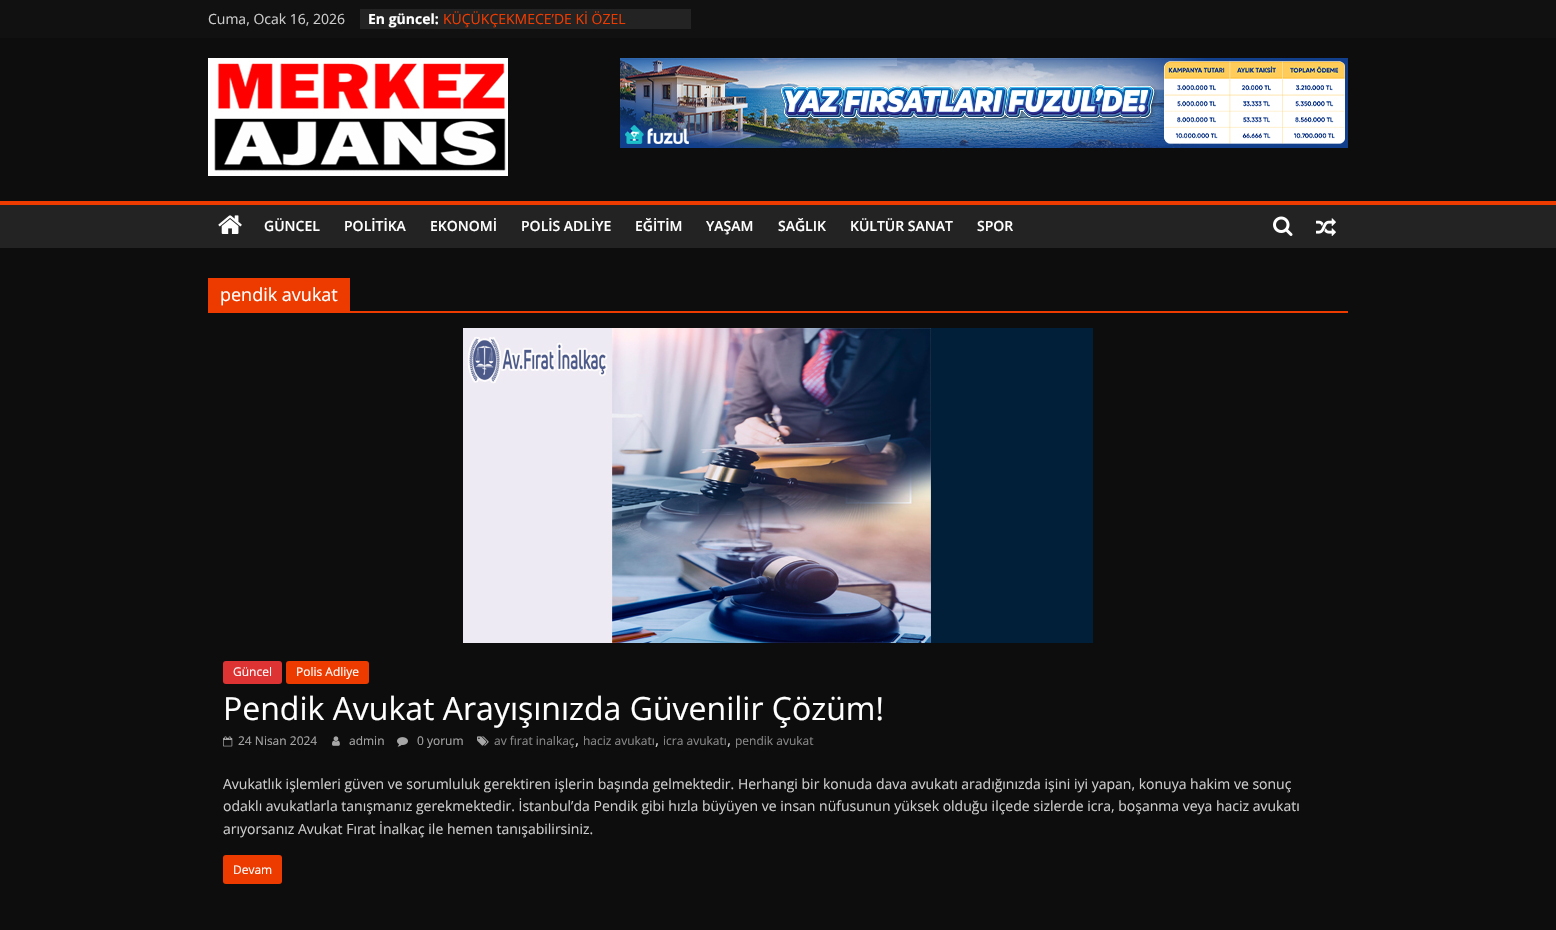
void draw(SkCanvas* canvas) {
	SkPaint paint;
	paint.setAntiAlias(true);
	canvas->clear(0xff0d0d0d);
	paint.setColor(0xff111111);
	canvas->drawRect(SkRect::MakeXYWH(0, 0, 1556, 38), paint);
	SkFont f1(fontMgr->matchFamilyStyle("Open Sans", SkFontStyle::Normal()), 14);
	f1.setSubpixel(true);
	paint.setColor(0xffcccccc);
	canvas->drawString("Cuma, Ocak 16, 2026", 208, 24, f1, paint);
	paint.setColor(0xff232323);
	canvas->drawRect(SkRect::MakeXYWH(360, 9, 331, 20), paint);
	SkFont f2(fontMgr->matchFamilyStyle("Open Sans", SkFontStyle::Bold()), 14);
	f2.setSubpixel(true);
	paint.setColor(0xffffffff);
	canvas->drawString("En güncel:", 368, 24, f2, paint);
	paint.setColor(0xffed3b00);
	canvas->drawString("KÜÇÜKÇEKMECE’DE Kİ ÖZEL", 443, 24, f1, paint);
	canvas->drawImageRect(SkImages::DeferredFromEncodedData(SkData::MakeFromFileName("img1.png")), SkRect::MakeXYWH(208, 58, 300, 118), SkSamplingOptions());
	canvas->drawImageRect(SkImages::DeferredFromEncodedData(SkData::MakeFromFileName("img2.png")), SkRect::MakeXYWH(620, 58, 728, 90), SkSamplingOptions());
	paint.setColor(0xff232323);
	canvas->drawRect(SkRect::MakeXYWH(0, 205, 1556, 43), paint);
	paint.setColor(0xffed3b00);
	canvas->drawRect(SkRect::MakeXYWH(0, 201, 1556, 4), paint);
	canvas->drawImageRect(SkImages::DeferredFromEncodedData(SkData::MakeFromFileName("img3.png")), SkRect::MakeXYWH(218, 215, 24, 19), SkSamplingOptions());
	SkFont f3(fontMgr->matchFamilyStyle("Open Sans", SkFontStyle(600, SkFontStyle::kNormal_Width, SkFontStyle::kUpright_Slant)), 14);
	f3.setSubpixel(true);
	paint.setColor(0xffffffff);
	canvas->drawString("GÜNCEL", 264, 231, f3, paint);
	canvas->drawString("POLİTİKA", 344, 231, f3, paint);
	canvas->drawString("EKONOMİ", 430, 231, f3, paint);
	canvas->drawString("POLİS ADLİYE", 521, 231, f3, paint);
	canvas->drawString("EĞİTİM", 635, 231, f3, paint);
	canvas->drawString("YAŞAM", 706, 231, f3, paint);
	canvas->drawString("SAĞLIK", 778, 231, f3, paint);
	canvas->drawString("KÜLTÜR SANAT", 850, 231, f3, paint);
	canvas->drawString("SPOR", 977, 231, f3, paint);
	canvas->drawImageRect(SkImages::DeferredFromEncodedData(SkData::MakeFromFileName("img4.png")), SkRect::MakeXYWH(1273, 216, 20, 20), SkSamplingOptions());
	canvas->drawImageRect(SkImages::DeferredFromEncodedData(SkData::MakeFromFileName("img5.png")), SkRect::MakeXYWH(1316, 218, 20, 18), SkSamplingOptions());
	paint.setColor(0xffed3b00);
	canvas->drawRect(SkRect::MakeXYWH(208, 311, 1140, 2), paint);
	canvas->drawRect(SkRect::MakeXYWH(208, 278, 142, 33), paint);
	SkFont f4(fontMgr->matchFamilyStyle("Open Sans", SkFontStyle::Normal()), 18);
	f4.setSubpixel(true);
	paint.setColor(0xffffffff);
	canvas->drawString("pendik avukat", 220, 301, f4, paint);
	canvas->drawImageRect(SkImages::DeferredFromEncodedData(SkData::MakeFromFileName("img6.png")), SkRect::MakeXYWH(463, 328, 630, 315), SkSamplingOptions());
	paint.setColor(0xffdd3333);
	canvas->drawRoundRect(SkRect::MakeXYWH(223, 661, 59, 23), 3, 3, paint);
	SkFont f5(fontMgr->matchFamilyStyle("Open Sans", SkFontStyle::Normal()), 12);
	f5.setSubpixel(true);
	paint.setColor(0xffffffff);
	canvas->drawString("Güncel", 233, 676, f5, paint);
	paint.setColor(0xffed3b00);
	canvas->drawRoundRect(SkRect::MakeXYWH(286, 661, 83, 23), 3, 3, paint);
	paint.setColor(0xffffffff);
	canvas->drawString("Polis Adliye", 296, 676, f5, paint);
	SkFont f6(fontMgr->matchFamilyStyle("Open Sans", SkFontStyle::Normal()), 32);
	f6.setSubpixel(true);
	canvas->drawString("Pendik Avukat Arayışınızda Güvenilir Çözüm!", 223, 720, f6, paint);
	canvas->drawImageRect(SkImages::DeferredFromEncodedData(SkData::MakeFromFileName("img7.png")), SkRect::MakeXYWH(223, 736, 10, 11), SkSamplingOptions());
	paint.setColor(0xffa6a6a6);
	canvas->drawString("24 Nisan 2024", 238, 745, f5, paint);
	canvas->drawImageRect(SkImages::DeferredFromEncodedData(SkData::MakeFromFileName("img8.png")), SkRect::MakeXYWH(332, 736, 8, 10), SkSamplingOptions());
	canvas->drawString("admin", 349, 745, f5, paint);
	canvas->drawImageRect(SkImages::DeferredFromEncodedData(SkData::MakeFromFileName("img9.png")), SkRect::MakeXYWH(397, 737, 11, 10), SkSamplingOptions());
	canvas->drawString("0 yorum", 417, 745, f5, paint);
	canvas->drawImageRect(SkImages::DeferredFromEncodedData(SkData::MakeFromFileName("img10.png")), SkRect::MakeXYWH(477, 736, 12, 10), SkSamplingOptions());
	paint.setColor(0xff888888);
	canvas->drawString("av fırat inalkaç", 494, 745, f5, paint);
	SkFont f7(fontMgr->matchFamilyStyle("Open Sans", SkFontStyle::Normal()), 16);
	f7.setSubpixel(true);
	paint.setColor(0xffcccccc);
	canvas->drawString(",", 575, 745, f7, paint);
	paint.setColor(0xff888888);
	canvas->drawString("haciz avukatı", 583, 745, f5, paint);
	paint.setColor(0xffcccccc);
	canvas->drawString(",", 655, 745, f7, paint);
	paint.setColor(0xff888888);
	canvas->drawString("icra avukatı", 663, 745, f5, paint);
	paint.setColor(0xffcccccc);
	canvas->drawString(",", 727, 745, f7, paint);
	paint.setColor(0xff888888);
	canvas->drawString("pendik avukat", 735, 745, f5, paint);
	paint.setColor(0xffcccccc);
	canvas->drawString("Avukatlık işlemleri güven ve sorumluluk gerektiren işlerin başında gelmektedir. Herhangi bir konuda dava avukatı aradığınızda işini iyi yapan, konuya hakim ve sonuç", 223, 789, f1, paint);
	canvas->drawString("odaklı avukatlarla tanışmanız gerekmektedir. İstanbul’da Pendik gibi hızla büyüyen ve insan nüfusunun yüksek olduğu ilçede sizlerde icra, boşanma veya haciz avukatı", 223, 811, f1, paint);
	canvas->drawString("arıyorsanız Avukat Fırat İnalkaç ile hemen tanışabilirsiniz.", 223, 834, f1, paint);
	paint.setColor(0xffed3b00);
	canvas->drawRoundRect(SkRect::MakeXYWH(223, 855, 59, 29), 3, 3, paint);
	paint.setColor(0xffffffff);
	canvas->drawString("Devam", 233, 874, f5, paint);
}
